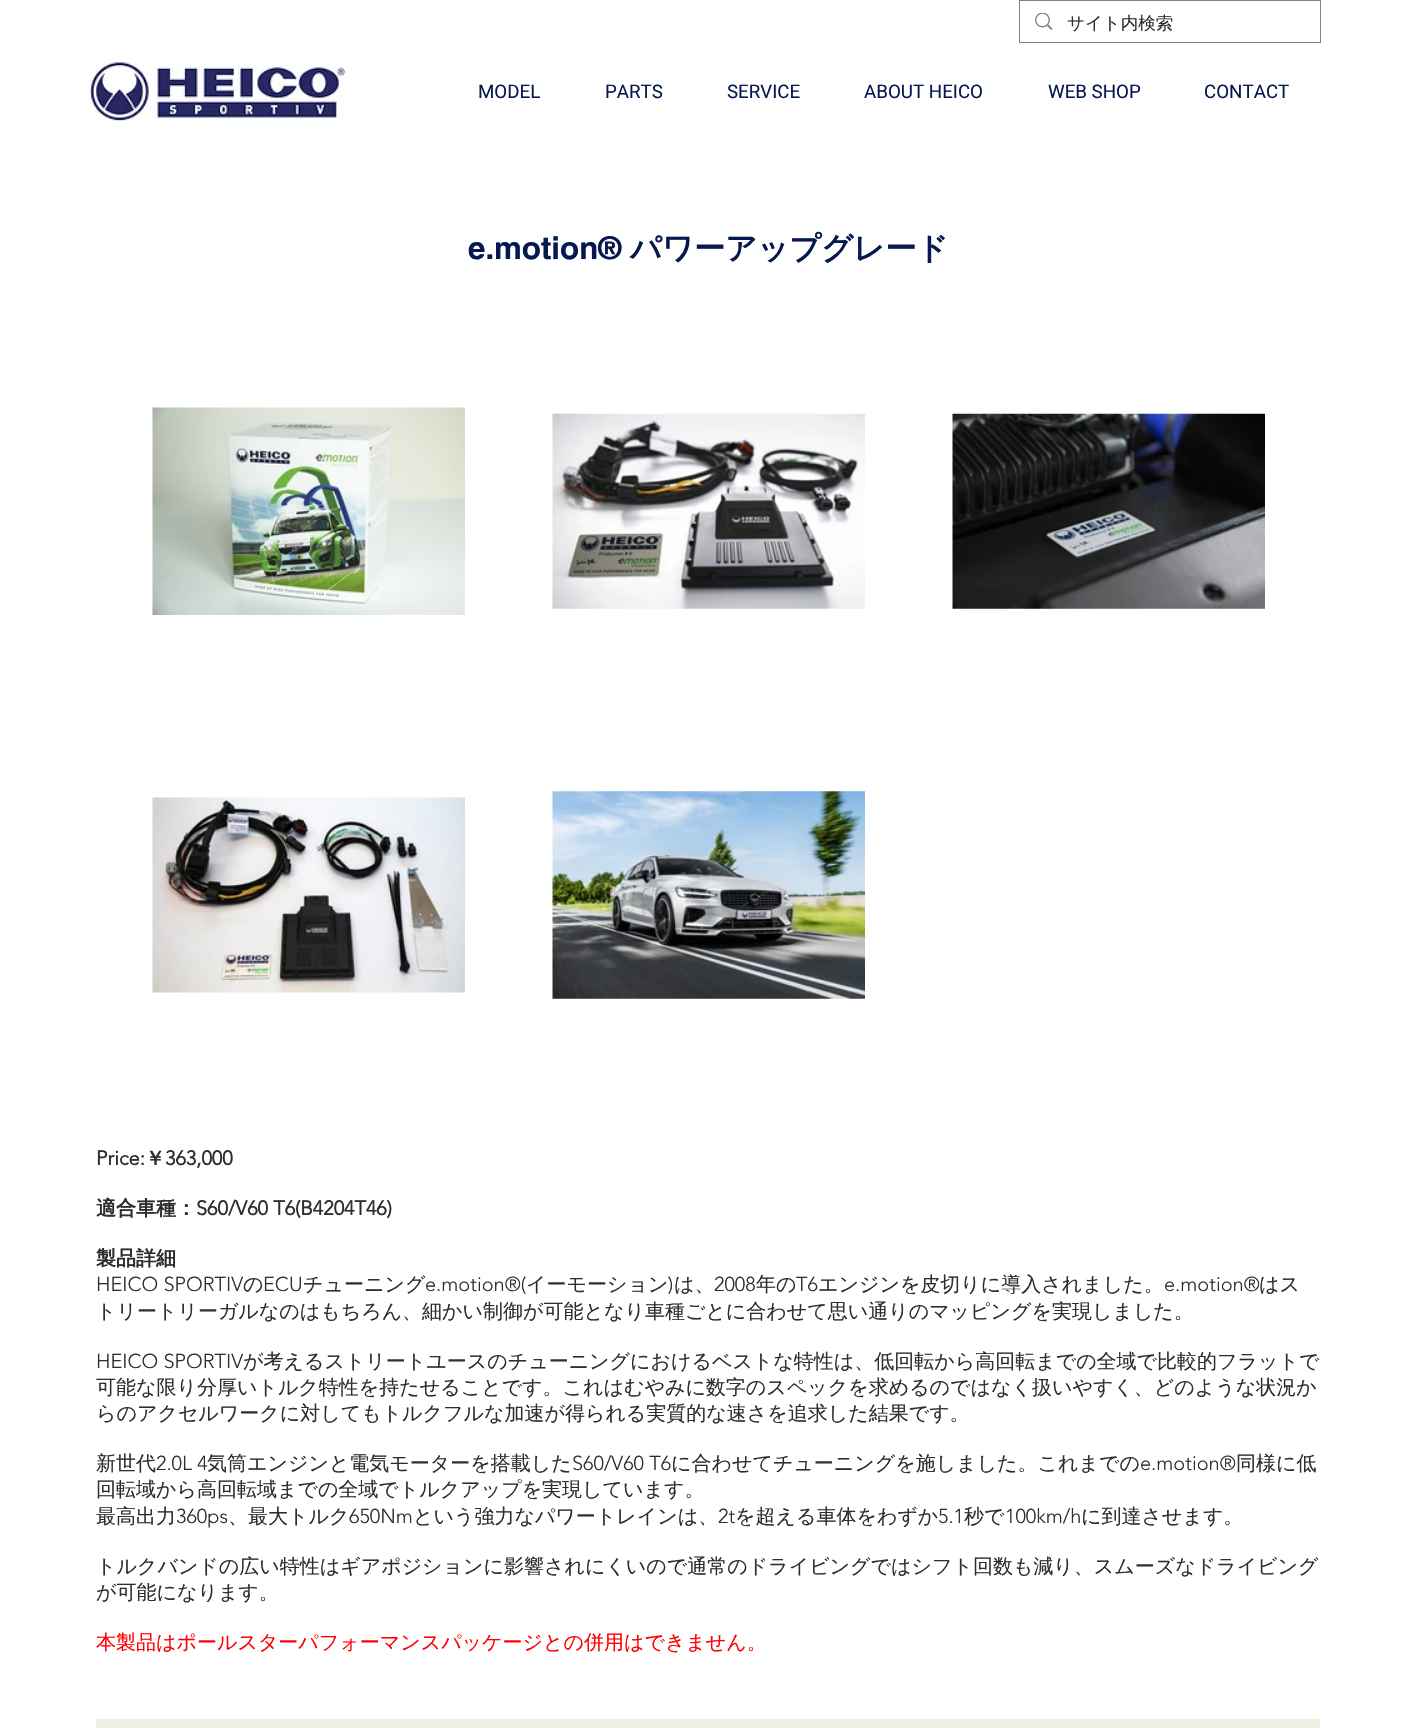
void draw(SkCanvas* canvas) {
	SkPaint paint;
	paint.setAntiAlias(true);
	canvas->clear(0xffffffff);
	paint.setStroke(true);
	paint.setStrokeWidth(1);
	paint.setColor(0xff828282);
	canvas->drawRect(SkRect::MakeXYWH(1019.5, 0.5, 301, 42), paint);
	canvas->drawImageRect(SkImages::DeferredFromEncodedData(SkData::MakeFromFileName("img1.png")), SkRect::MakeXYWH(1035, 13, 18, 17), SkSamplingOptions());
	SkFont f1(fontMgr->matchFamilyStyle("WenQuanYi Zen Hei", SkFontStyle(500, SkFontStyle::kNormal_Width, SkFontStyle::kUpright_Slant)), 17.5);
	f1.setSubpixel(true);
	paint.setStroke(false);
	paint.setColor(0xff2f2e2e);
	canvas->drawString("サイト内検索", 1067, 29, f1, paint);
	canvas->drawImageRect(SkImages::DeferredFromEncodedData(SkData::MakeFromFileName("img2.png")), SkRect::MakeXYWH(84, 58, 265, 67), SkSamplingOptions());
	SkFont f2(fontMgr->matchFamilyStyle("Roboto", SkFontStyle::Normal()), 18.75);
	f2.setSubpixel(true);
	paint.setColor(0xff051950);
	canvas->drawString("MODEL", 478, 98, f2, paint);
	canvas->drawString("PARTS", 605, 98, f2, paint);
	canvas->drawString("SERVICE", 727, 98, f2, paint);
	canvas->drawString("ABOUT HEICO", 864, 98, f2, paint);
	canvas->drawString("WEB SHOP", 1048, 98, f2, paint);
	canvas->drawString("CONTACT", 1204, 98, f2, paint);
	SkFont f3(fontMgr->matchFamilyStyle("helvetica", SkFontStyle::Bold()), 31.25);
	f3.setSubpixel(true);
	canvas->drawString("e.motion®", 468, 259, f3, paint);
	SkFont f4(fontMgr->matchFamilyStyle("WenQuanYi Zen Hei", SkFontStyle::Bold()), 31.25);
	f4.setSubpixel(true);
	canvas->drawString("パワーアップグレード", 630, 259, f4, paint);
	canvas->drawImageRect(SkImages::DeferredFromEncodedData(SkData::MakeFromFileName("img3.png")), SkRect::MakeXYWH(152, 407, 313, 208), SkSamplingOptions());
	canvas->drawImageRect(SkImages::DeferredFromEncodedData(SkData::MakeFromFileName("img4.png")), SkRect::MakeXYWH(552, 413, 313, 196), SkSamplingOptions());
	canvas->drawImageRect(SkImages::DeferredFromEncodedData(SkData::MakeFromFileName("img5.png")), SkRect::MakeXYWH(952, 413, 313, 196), SkSamplingOptions());
	canvas->drawImageRect(SkImages::DeferredFromEncodedData(SkData::MakeFromFileName("img6.png")), SkRect::MakeXYWH(152, 797, 313, 196), SkSamplingOptions());
	canvas->drawImageRect(SkImages::DeferredFromEncodedData(SkData::MakeFromFileName("img7.png")), SkRect::MakeXYWH(552, 791, 313, 208), SkSamplingOptions());
	SkFont f5(fontMgr->matchFamilyStyle("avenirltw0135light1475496", SkFontStyle::Bold()), 20);
	f5.setSubpixel(true);
	paint.setColor(0xff2f2e2e);
	canvas->drawString("Price:", 96, 1165, f5, paint);
	SkFont f6(fontMgr->matchFamilyStyle("WenQuanYi Zen Hei", SkFontStyle::Bold()), 20);
	f6.setSubpixel(true);
	canvas->drawString("￥", 145, 1165, f6, paint);
	canvas->drawString("363,000", 165, 1165, f5, paint);
	canvas->drawString("適合車種：", 96, 1215, f6, paint);
	canvas->drawString("S60/V60 T6(B4204T46)", 196, 1215, f5, paint);
	canvas->drawString("製品詳細", 96, 1265, f6, paint);
	SkFont f7(fontMgr->matchFamilyStyle("avenirltw0135light1475496", SkFontStyle(300, SkFontStyle::kNormal_Width, SkFontStyle::kUpright_Slant)), 20);
	f7.setSubpixel(true);
	canvas->drawString("HEICO SPORTIV", 96, 1291, f7, paint);
	SkFont f8(fontMgr->matchFamilyStyle("WenQuanYi Zen Hei", SkFontStyle(500, SkFontStyle::kNormal_Width, SkFontStyle::kUpright_Slant)), 20);
	f8.setSubpixel(true);
	canvas->drawString("の", 243, 1291, f8, paint);
	canvas->drawString("ECU", 263, 1291, f7, paint);
	canvas->drawString("チューニング", 303, 1291, f8, paint);
	canvas->drawString("e.motion®(", 425, 1291, f7, paint);
	canvas->drawString("イーモーション", 526, 1291, f8, paint);
	canvas->drawString(")", 668, 1291, f7, paint);
	canvas->drawString("は、", 674, 1291, f8, paint);
	canvas->drawString("2008", 714, 1291, f7, paint);
	canvas->drawString("年の", 756, 1291, f8, paint);
	canvas->drawString("T6", 796, 1291, f7, paint);
	canvas->drawString("エンジンを皮切りに導入されました。", 818, 1291, f8, paint);
	canvas->drawString("e.motion®", 1164, 1291, f7, paint);
	canvas->drawString("はス", 1259, 1291, f8, paint);
	canvas->drawString("トリートリーガルなのはもちろん、細かい制御が可能となり車種ごとに合わせて思い通りのマッピングを実現しました。", 96, 1318, f8, paint);
	canvas->drawString("HEICO SPORTIV", 96, 1368, f7, paint);
	canvas->drawString("が考えるストリートユースのチューニングにおけるベストな特性は、低回転から高回転までの全域で比較的フラットで", 243, 1368, f8, paint);
	canvas->drawString("可能な限り分厚いトルク特性を持たせることです。これはむやみに数字のスペックを求めるのではなく扱いやすく、どのような状況か", 96, 1394, f8, paint);
	canvas->drawString("らのアクセルワークに対してもトルクフルな加速が得られる実質的な速さを追求した結果です。", 96, 1420, f8, paint);
	canvas->drawString("新世代", 96, 1470, f8, paint);
	canvas->drawString("2.0L 4", 156, 1470, f7, paint);
	canvas->drawString("気筒エンジンと電気モーターを搭載した", 207, 1470, f8, paint);
	canvas->drawString("S60/V60 T6", 572, 1470, f7, paint);
	canvas->drawString("に合わせてチューニングを施しました。これまでの", 671, 1470, f8, paint);
	canvas->drawString("e.motion®", 1140, 1470, f7, paint);
	canvas->drawString("同様に低", 1236, 1470, f8, paint);
	canvas->drawString("回転域から高回転域までの全域でトルクアップを実現しています。", 96, 1496, f8, paint);
	canvas->drawString("最高出力", 96, 1523, f8, paint);
	canvas->drawString("360ps", 176, 1523, f7, paint);
	canvas->drawString("、最大トルク", 228, 1523, f8, paint);
	canvas->drawString("650Nm", 349, 1523, f7, paint);
	canvas->drawString("という強力なパワートレインは、", 413, 1523, f8, paint);
	canvas->drawString("2t", 718, 1523, f7, paint);
	canvas->drawString("を超える車体をわずか", 735, 1523, f8, paint);
	canvas->drawString("5.1", 938, 1523, f7, paint);
	canvas->drawString("秒で", 964, 1523, f8, paint);
	canvas->drawString("100km/h", 1005, 1523, f7, paint);
	canvas->drawString("に到達させます。", 1081, 1523, f8, paint);
	canvas->drawString("トルクバンドの広い特性はギアポジションに影響されにくいので通常のドライビングではシフト回数も減り、スムーズなドライビング", 96, 1573, f8, paint);
	canvas->drawString("が可能になります。", 96, 1599, f8, paint);
	paint.setColor(0xffff0000);
	canvas->drawString("本製品はポールスターパフォーマンスパッケージとの併用はできません。", 96, 1649, f8, paint);
	paint.setColor(0xffeef0e4);
	canvas->drawRect(SkRect::MakeXYWH(96, 1719, 1224, 9), paint);
}
